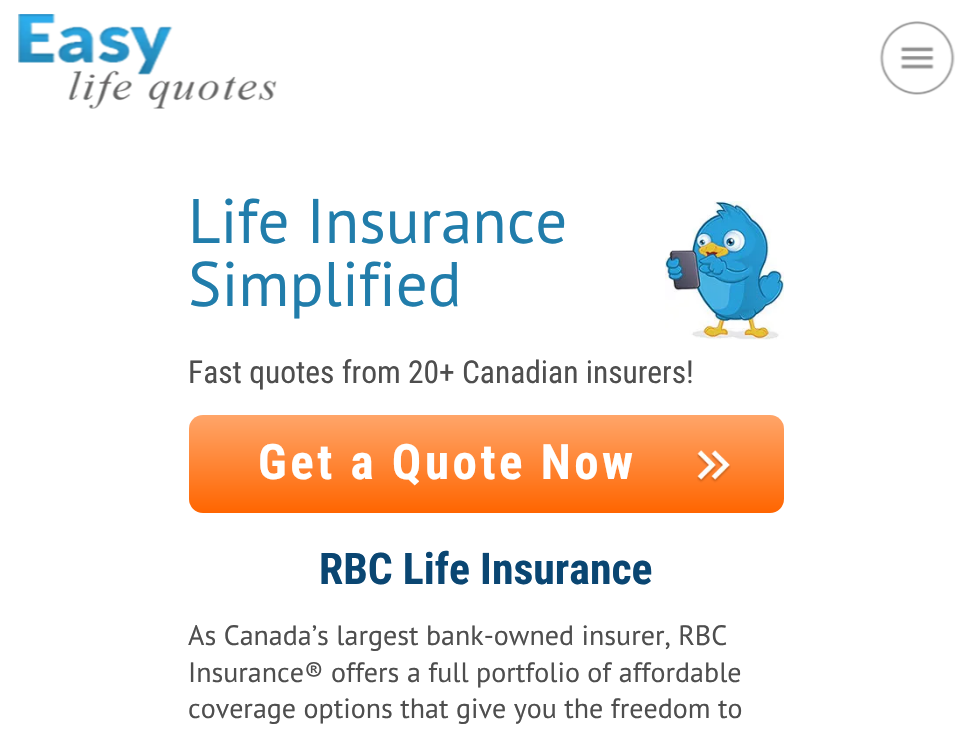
void draw(SkCanvas* canvas) {
	SkPaint paint;
	paint.setAntiAlias(true);
	auto spacedText = [&](const char* s, float x, float y, const SkFont& font, const SkPaint& ink, float letter, float word) {
		std::vector<SkGlyphID> glyphs(font.countText(s, strlen(s), SkTextEncoding::kUTF8));
		std::vector<float> xs(glyphs.size());
		font.textToGlyphs(s, strlen(s), SkTextEncoding::kUTF8, glyphs);
		font.getXPos(glyphs, xs, x);
		float extra = 0;
		for (size_t i = 0; i < glyphs.size(); i++) {
			xs[i] += extra;
			extra += letter + word * (glyphs[i] == font.unicharToGlyph(' '));
		}
		canvas->drawTextBlob(SkTextBlob::MakeFromPosHGlyphs(glyphs, xs, y, font), 0, 0, ink);
	};
	canvas->clear(0xffffffff);
	canvas->drawImageRect(SkImages::DeferredFromEncodedData(SkData::MakeFromFileName("img1.png")), SkRect::MakeXYWH(18, 14, 259, 95), SkSamplingOptions());
	canvas->drawImageRect(SkImages::DeferredFromEncodedData(SkData::MakeFromFileName("img2.png")), SkRect::MakeXYWH(879, 21, 76, 74), SkSamplingOptions());
	SkFont f1(fontMgr->matchFamilyStyle("PT Sans", SkFontStyle::Normal()), 63);
	f1.setSubpixel(true);
	paint.setColor(0xff217dab);
	canvas->drawString("Life Insurance", 188, 243, f1, paint);
	canvas->drawString("Simplified", 188, 306, f1, paint);
	canvas->drawImageRect(SkImages::DeferredFromEncodedData(SkData::MakeFromFileName("img3.png")), SkRect::MakeXYWH(665, 201, 119, 139), SkSamplingOptions());
	SkFont f2(fontMgr->matchFamilyStyle("Roboto Condensed", SkFontStyle::Normal()), 31.5);
	f2.setSubpixel(true);
	paint.setColor(0xff4e4e4e);
	canvas->drawString("Fast quotes from 20+ Canadian insurers!", 188, 383, f2, paint);
	{
		const SkColor colors[] = {0xffffa569, 0xffff6500};
		const float stops[] = {0, 1};
		const SkPoint ends[] = {{487, 415}, {487, 513}};
		paint.setShader(SkGradientShader::MakeLinear(ends, colors, stops, 2, SkTileMode::kClamp));
		paint.setAlpha(255);
	}
	canvas->drawRoundRect(SkRect::MakeXYWH(189, 415, 595, 98), 14, 14, paint);
	SkFont f3(fontMgr->matchFamilyStyle("Roboto Condensed", SkFontStyle::Bold()), 49);
	f3.setSubpixel(true);
	paint.setShader(nullptr);
	paint.setColor(0xffffffff);
	spacedText("Get a Quote Now", 258, 479, f3, paint, 3.5, 0);
	canvas->drawImageRect(SkImages::DeferredFromEncodedData(SkData::MakeFromFileName("img4.png")), SkRect::MakeXYWH(697, 450, 34, 33), SkSamplingOptions());
	SkFont f4(fontMgr->matchFamilyStyle("Roboto Condensed", SkFontStyle::Bold()), 43.75);
	f4.setSubpixel(true);
	paint.setColor(0xff0a4672);
	canvas->drawString("RBC Life Insurance", 319, 584, f4, paint);
	SkFont f5(fontMgr->matchFamilyStyle("PT Sans", SkFontStyle::Normal()), 28);
	f5.setSubpixel(true);
	paint.setColor(0xff4e4e4e);
	canvas->drawString("As Canada’s largest bank-owned insurer, RBC", 188, 645, f5, paint);
	canvas->drawString("Insurance® offers a full portfolio of affordable", 188, 682, f5, paint);
	canvas->drawString("coverage options that give you the freedom to", 188, 718, f5, paint);
}
